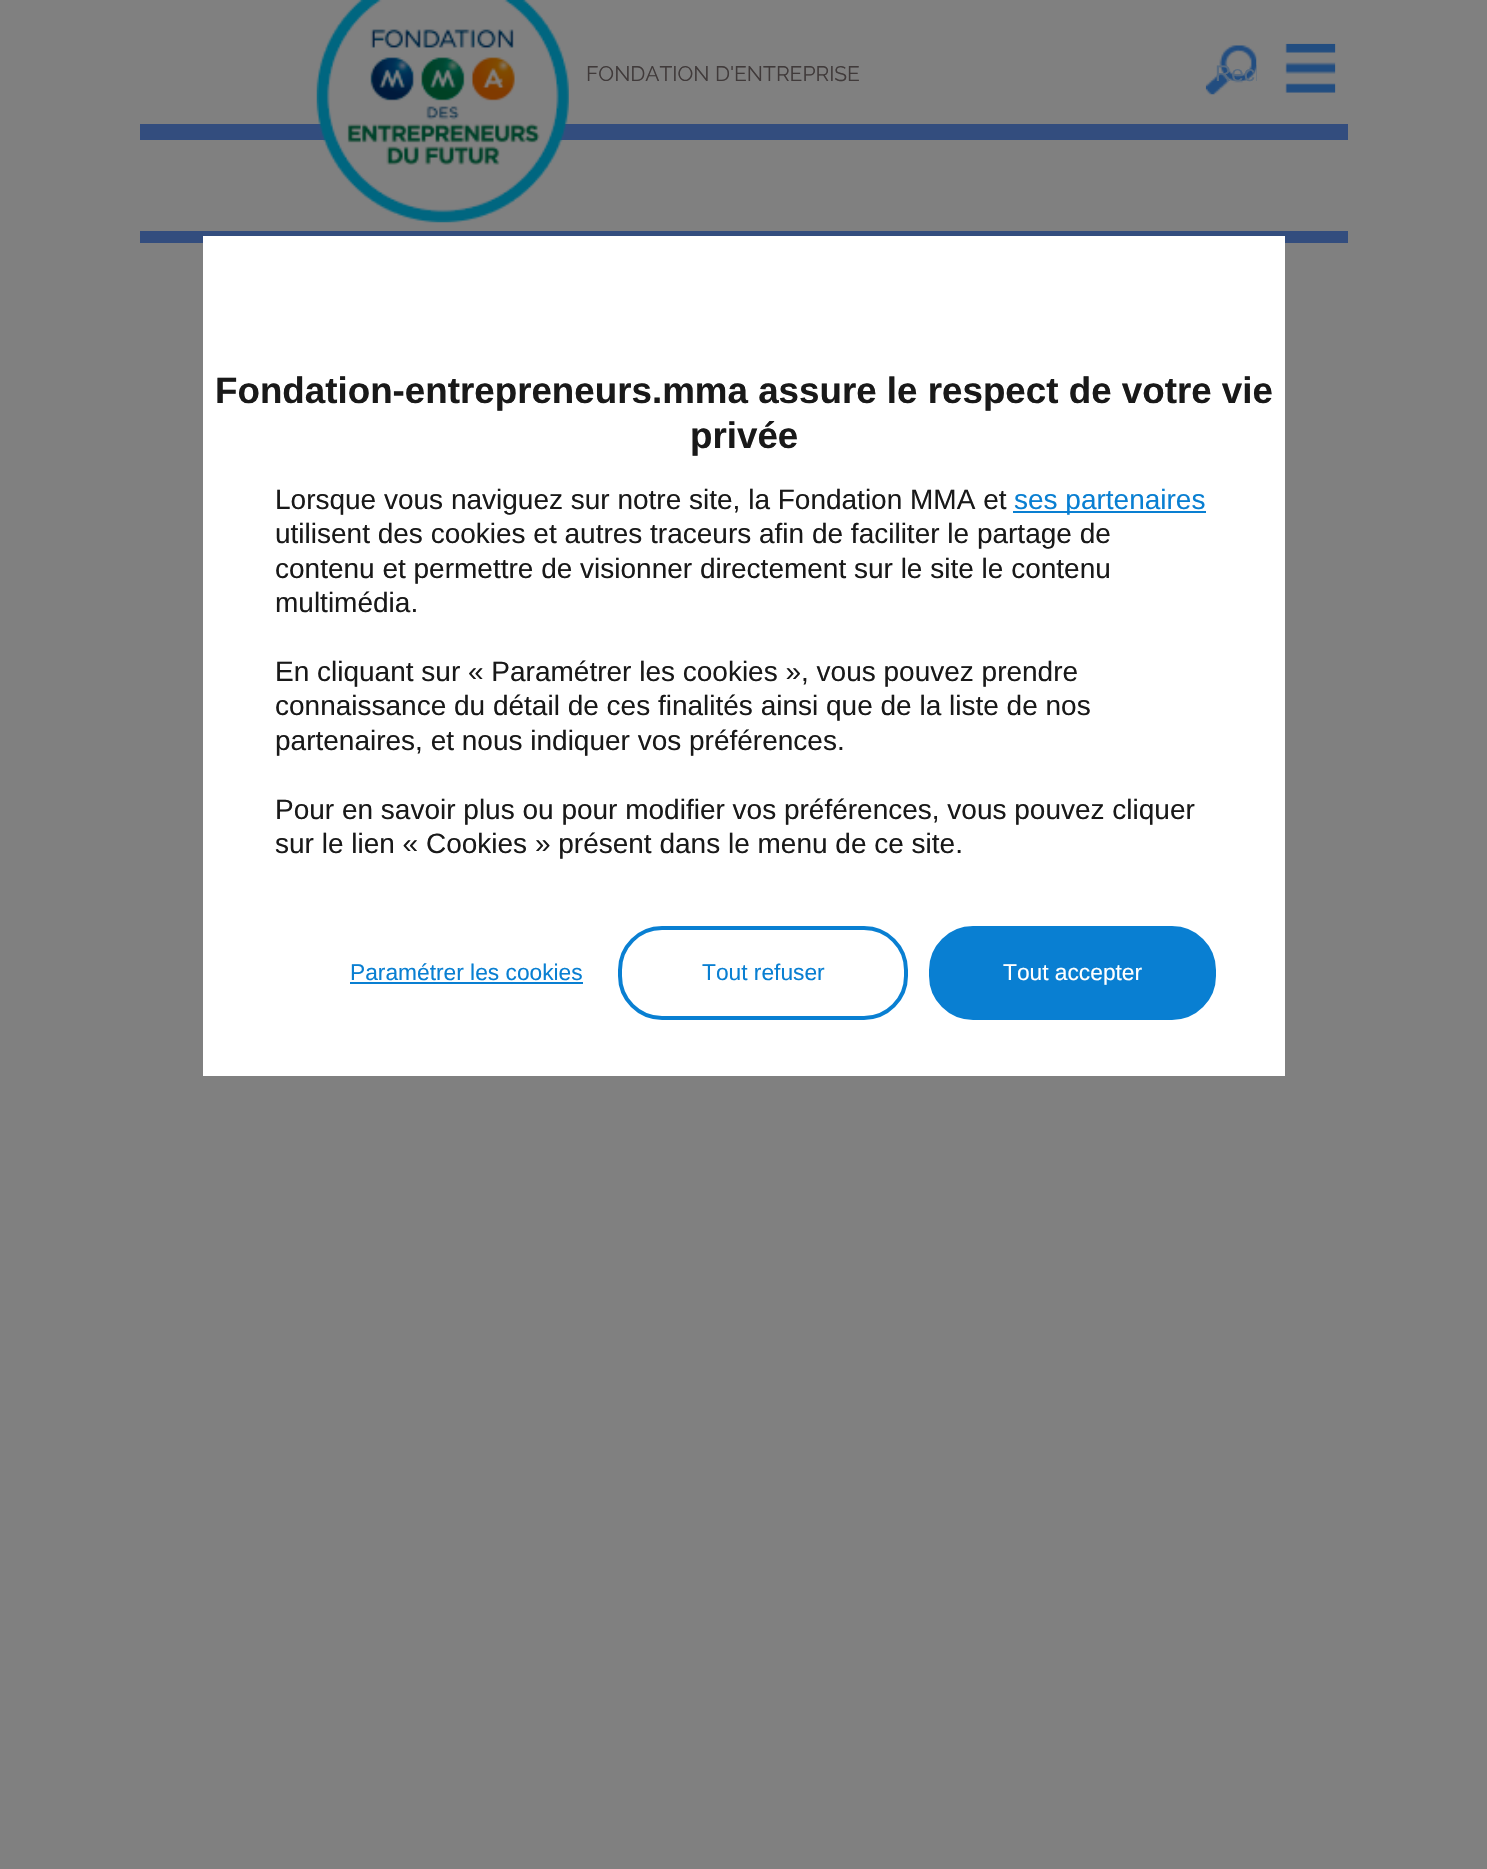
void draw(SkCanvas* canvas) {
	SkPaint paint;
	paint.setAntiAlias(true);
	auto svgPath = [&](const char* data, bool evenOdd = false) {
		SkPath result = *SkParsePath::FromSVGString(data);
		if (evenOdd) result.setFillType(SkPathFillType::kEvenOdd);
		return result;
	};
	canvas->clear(0xff808080);
	paint.setColor(0xff334d7e);
	canvas->drawRect(SkRect::MakeXYWH(140, 124, 1208, 16), paint);
	canvas->drawImageRect(SkImages::DeferredFromEncodedData(SkData::MakeFromFileName("img1.png")), SkRect::MakeXYWH(316, 0, 253, 223), SkSamplingOptions());
	SkFont f1(fontMgr->matchFamilyStyle("Raleway", SkFontStyle::Normal()), 21);
	f1.setSubpixel(true);
	paint.setColor(0xff403a3a);
	canvas->drawString("FONDATION D'ENTREPRISE", 586, 81, f1, paint);
	canvas->drawImageRect(SkImages::DeferredFromEncodedData(SkData::MakeFromFileName("img2.png")), SkRect::MakeXYWH(1205, 45, 52, 50), SkSamplingOptions());
	canvas->save();
	canvas->clipPath(svgPath("M1208 44H1255C1256 44 1257 45 1257 46V93C1257 94 1256 95 1255 95H1208C1207 95 1206 94 1206 93V46C1206 45 1207 44 1208 44Z"), true);
	SkFont f2(fontMgr->matchFamilyStyle("Liberation Sans", SkFontStyle::Normal()), 22.5);
	f2.setSubpixel(true);
	paint.setColor(0xff586b80);
	canvas->drawString("Rech", 1215, 81, f2, paint);
	canvas->restore();
	canvas->drawImageRect(SkImages::DeferredFromEncodedData(SkData::MakeFromFileName("img3.png")), SkRect::MakeXYWH(1285, 43, 51, 50), SkSamplingOptions());
	paint.setColor(0xff334d7e);
	canvas->drawRect(SkRect::MakeXYWH(140, 231, 1208, 12), paint);
	paint.setColor(0xffffffff);
	canvas->drawRect(SkRect::MakeXYWH(203, 236, 1082, 840), paint);
	SkFont f3(fontMgr->matchFamilyStyle("Liberation Sans", SkFontStyle::Bold()), 36.75);
	f3.setSubpixel(true);
	paint.setColor(0xff191919);
	canvas->drawString("Fondation-entrepreneurs.mma assure le respect de votre vie", 215, 403, f3, paint);
	canvas->drawString("privée", 690, 448, f3, paint);
	SkFont f4(fontMgr->matchFamilyStyle("Liberation Sans", SkFontStyle::Normal()), 28);
	f4.setSubpixel(true);
	canvas->drawString("Lorsque vous naviguez sur notre site, la Fondation MMA et", 275, 509, f4, paint);
	paint.setColor(0xff097fd2);
	canvas->drawRect(SkRect::MakeXYWH(1013, 511, 193, 2), paint);
	canvas->drawString("ses partenaires", 1014, 509, f4, paint);
	paint.setColor(0xff191919);
	canvas->drawString("utilisent des cookies et autres traceurs afin de faciliter le partage de", 275, 543, f4, paint);
	canvas->drawString("contenu et permettre de visionner directement sur le site le contenu", 275, 578, f4, paint);
	canvas->drawString("multimédia.", 275, 612, f4, paint);
	canvas->drawString("En cliquant sur « Paramétrer les cookies », vous pouvez prendre", 275, 681, f4, paint);
	canvas->drawString("connaissance du détail de ces finalités ainsi que de la liste de nos", 275, 715, f4, paint);
	canvas->drawString("partenaires, et nous indiquer vos préférences.", 275, 750, f4, paint);
	canvas->drawString("Pour en savoir plus ou pour modifier vos préférences, vous pouvez cliquer", 275, 819, f4, paint);
	canvas->drawString("sur le lien « Cookies » présent dans le menu de ce site.", 275, 853, f4, paint);
	SkFont f5(fontMgr->matchFamilyStyle("Liberation Sans", SkFontStyle::Normal()), 22.75);
	f5.setSubpixel(true);
	paint.setColor(0xff097fd2);
	canvas->drawString("Paramétrer les cookies", 350, 980, f5, paint);
	canvas->drawRect(SkRect::MakeXYWH(350, 982, 233, 2), paint);
	paint.setStroke(true);
	paint.setStrokeWidth(4);
	canvas->drawRoundRect(SkRect::MakeXYWH(620, 928, 286, 90), 42, 42, paint);
	paint.setStroke(false);
	canvas->drawString("Tout refuser", 702, 980, f5, paint);
	canvas->drawRoundRect(SkRect::MakeXYWH(931, 928, 283, 90), 42, 42, paint);
	paint.setStroke(true);
	canvas->drawRoundRect(SkRect::MakeXYWH(931, 928, 283, 90), 42, 42, paint);
	paint.setStroke(false);
	paint.setColor(0xffffffff);
	canvas->drawString("Tout accepter", 1003, 980, f5, paint);
}
